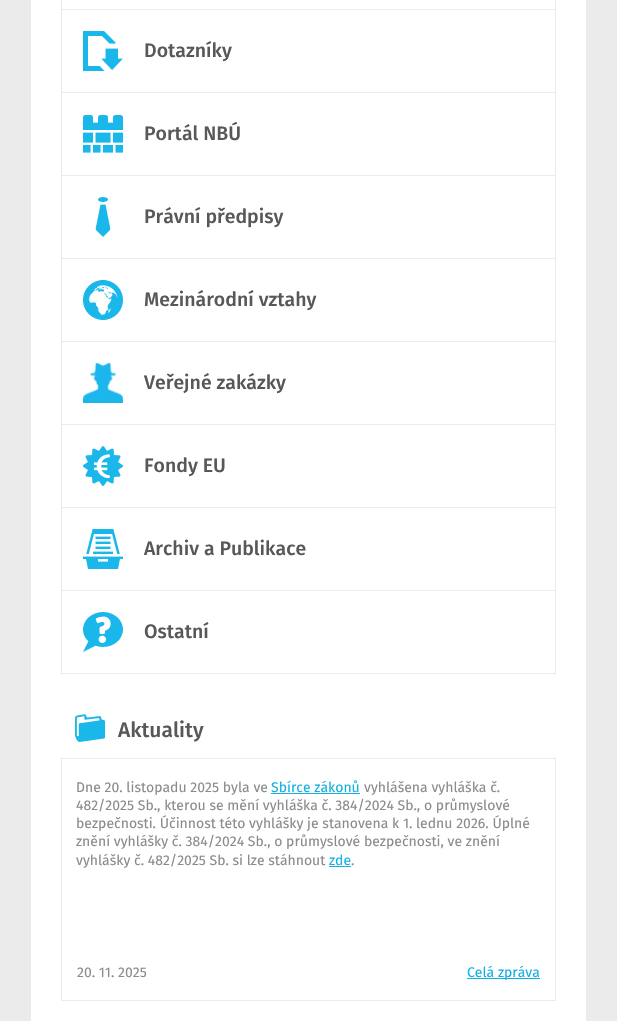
void draw(SkCanvas* canvas) {
	SkPaint paint;
	paint.setAntiAlias(true);
	canvas->clear(0xffebebeb);
	paint.setColor(0xffffffff);
	canvas->drawRect(SkRect::MakeXYWH(31, 0, 555, 1021), paint);
	paint.setColor(0xffebebeb);
	canvas->drawRect(SkRect::MakeXYWH(555, 0, 1, 674), paint);
	canvas->drawRect(SkRect::MakeXYWH(61, 9, 495, 1), paint);
	canvas->drawRect(SkRect::MakeXYWH(61, 0, 1, 10), paint);
	canvas->drawRect(SkRect::MakeXYWH(61, 92, 495, 1), paint);
	canvas->drawRect(SkRect::MakeXYWH(61, 10, 1, 83), paint);
	canvas->drawImageRect(SkImages::DeferredFromEncodedData(SkData::MakeFromFileName("img1.png")), SkRect::MakeXYWH(83, 31, 40, 40), SkSamplingOptions());
	SkFont f1(fontMgr->matchFamilyStyle("Fira Sans", SkFontStyle(500, SkFontStyle::kNormal_Width, SkFontStyle::kUpright_Slant)), 19.5);
	f1.setSubpixel(true);
	paint.setColor(0xff585858);
	canvas->drawString("Dotazníky", 144, 57, f1, paint);
	paint.setColor(0xffebebeb);
	canvas->drawRect(SkRect::MakeXYWH(61, 175, 495, 1), paint);
	canvas->drawRect(SkRect::MakeXYWH(61, 93, 1, 83), paint);
	canvas->drawImageRect(SkImages::DeferredFromEncodedData(SkData::MakeFromFileName("img2.png")), SkRect::MakeXYWH(83, 115, 40, 38), SkSamplingOptions());
	paint.setColor(0xff585858);
	canvas->drawString("Portál NBÚ", 144, 140, f1, paint);
	paint.setColor(0xffebebeb);
	canvas->drawRect(SkRect::MakeXYWH(61, 258, 495, 1), paint);
	canvas->drawRect(SkRect::MakeXYWH(61, 176, 1, 83), paint);
	canvas->drawImageRect(SkImages::DeferredFromEncodedData(SkData::MakeFromFileName("img3.png")), SkRect::MakeXYWH(95, 197, 16, 40), SkSamplingOptions());
	paint.setColor(0xff585858);
	canvas->drawString("Právní předpisy", 144, 223, f1, paint);
	paint.setColor(0xffebebeb);
	canvas->drawRect(SkRect::MakeXYWH(61, 341, 495, 1), paint);
	canvas->drawRect(SkRect::MakeXYWH(61, 259, 1, 83), paint);
	canvas->drawImageRect(SkImages::DeferredFromEncodedData(SkData::MakeFromFileName("img4.png")), SkRect::MakeXYWH(83, 280, 40, 40), SkSamplingOptions());
	paint.setColor(0xff585858);
	canvas->drawString("Mezinárodní vztahy", 144, 306, f1, paint);
	paint.setColor(0xffebebeb);
	canvas->drawRect(SkRect::MakeXYWH(61, 424, 495, 1), paint);
	canvas->drawRect(SkRect::MakeXYWH(61, 342, 1, 83), paint);
	canvas->drawImageRect(SkImages::DeferredFromEncodedData(SkData::MakeFromFileName("img5.png")), SkRect::MakeXYWH(83, 363, 40, 40), SkSamplingOptions());
	paint.setColor(0xff585858);
	canvas->drawString("Veřejné zakázky", 144, 389, f1, paint);
	paint.setColor(0xffebebeb);
	canvas->drawRect(SkRect::MakeXYWH(61, 507, 495, 1), paint);
	canvas->drawRect(SkRect::MakeXYWH(61, 425, 1, 83), paint);
	canvas->drawImageRect(SkImages::DeferredFromEncodedData(SkData::MakeFromFileName("img6.png")), SkRect::MakeXYWH(83, 446, 40, 40), SkSamplingOptions());
	paint.setColor(0xff585858);
	canvas->drawString("Fondy EU", 144, 472, f1, paint);
	paint.setColor(0xffebebeb);
	canvas->drawRect(SkRect::MakeXYWH(61, 590, 495, 1), paint);
	canvas->drawRect(SkRect::MakeXYWH(61, 508, 1, 83), paint);
	canvas->drawImageRect(SkImages::DeferredFromEncodedData(SkData::MakeFromFileName("img7.png")), SkRect::MakeXYWH(83, 529, 40, 40), SkSamplingOptions());
	paint.setColor(0xff585858);
	canvas->drawString("Archiv a Publikace", 144, 555, f1, paint);
	paint.setColor(0xffebebeb);
	canvas->drawRect(SkRect::MakeXYWH(61, 673, 495, 1), paint);
	canvas->drawRect(SkRect::MakeXYWH(61, 591, 1, 83), paint);
	canvas->drawImageRect(SkImages::DeferredFromEncodedData(SkData::MakeFromFileName("img8.png")), SkRect::MakeXYWH(83, 612, 40, 40), SkSamplingOptions());
	paint.setColor(0xff585858);
	canvas->drawString("Ostatní", 144, 638, f1, paint);
	canvas->drawImageRect(SkImages::DeferredFromEncodedData(SkData::MakeFromFileName("img9.png")), SkRect::MakeXYWH(75, 714, 30, 28), SkSamplingOptions());
	SkFont f2(fontMgr->matchFamilyStyle("Fira Sans", SkFontStyle(500, SkFontStyle::kNormal_Width, SkFontStyle::kUpright_Slant)), 21);
	f2.setSubpixel(true);
	canvas->drawString("Aktuality", 118, 737, f2, paint);
	paint.setStroke(true);
	paint.setStrokeWidth(1);
	paint.setColor(0xffebebeb);
	canvas->drawRect(SkRect::MakeXYWH(61.5, 758.5, 494, 242), paint);
	SkFont f3(fontMgr->matchFamilyStyle("Fira Sans", SkFontStyle::Normal()), 14);
	f3.setSubpixel(true);
	paint.setStroke(false);
	paint.setColor(0xff8a8b8d);
	canvas->drawString("Dne 20. listopadu 2025 byla ve", 76, 792, f3, paint);
	paint.setColor(0xff13b0e3);
	canvas->drawString("Sbírce zákonů", 271, 792, f3, paint);
	canvas->drawRect(SkRect::MakeXYWH(271, 793, 89, 1), paint);
	paint.setColor(0xff8a8b8d);
	canvas->drawString("vyhlášena vyhláška č.", 364, 792, f3, paint);
	canvas->drawString("482/2025 Sb., kterou se mění vyhláška č. 384/2024 Sb., o průmyslové", 76, 810, f3, paint);
	canvas->drawString("bezpečnosti. Účinnost této vyhlášky je stanovena k 1. lednu 2026. Úplné", 76, 828, f3, paint);
	canvas->drawString("znění vyhlášky č. 384/2024 Sb., o průmyslové bezpečnosti, ve znění", 76, 846, f3, paint);
	canvas->drawString("vyhlášky č. 482/2025 Sb. si lze stáhnout", 76, 865, f3, paint);
	paint.setColor(0xff13b0e3);
	canvas->drawString("zde", 329, 865, f3, paint);
	canvas->drawRect(SkRect::MakeXYWH(329, 866, 22, 1), paint);
	paint.setColor(0xff8a8b8d);
	canvas->drawString(".", 351, 865, f3, paint);
	canvas->drawString("20. 11. 2025", 77, 977, f3, paint);
	paint.setColor(0xff13b0e3);
	canvas->drawRect(SkRect::MakeXYWH(467, 978, 73, 1), paint);
	canvas->drawString("Celá zpráva", 467, 977, f3, paint);
}
